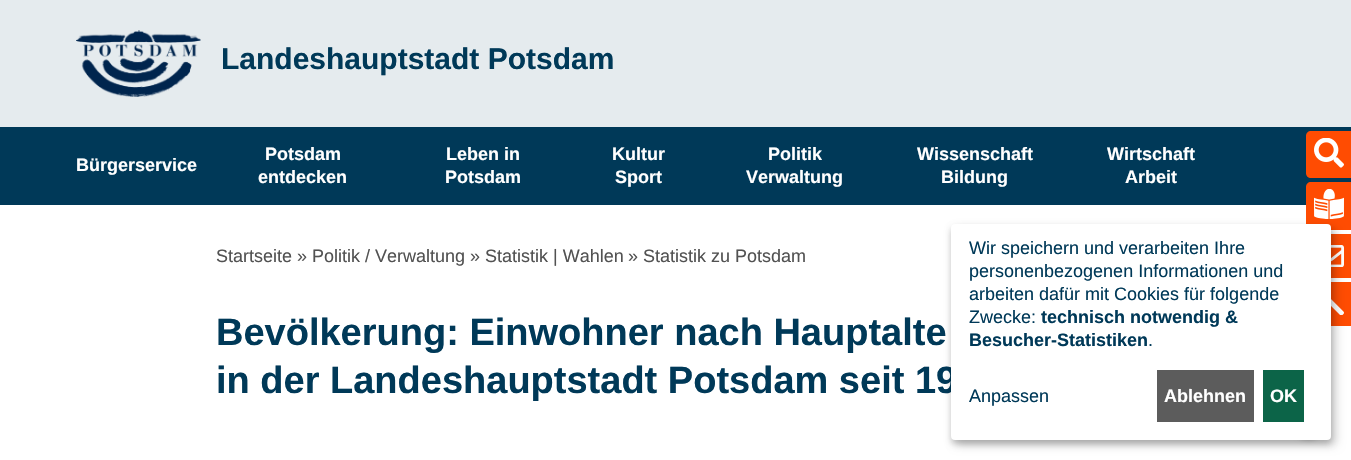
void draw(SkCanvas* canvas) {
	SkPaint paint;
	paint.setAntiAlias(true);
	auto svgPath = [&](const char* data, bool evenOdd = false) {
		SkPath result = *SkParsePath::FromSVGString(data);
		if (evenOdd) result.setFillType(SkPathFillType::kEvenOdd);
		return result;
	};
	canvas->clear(0xffffffff);
	paint.setColor(0xffe5ebee);
	canvas->drawRect(SkRect::MakeXYWH(0, 0, 1351, 127), paint);
	canvas->drawImageRect(SkImages::DeferredFromEncodedData(SkData::MakeFromFileName("img1.png")), SkRect::MakeXYWH(76, 30, 125, 67), SkSamplingOptions());
	SkFont f1(fontMgr->matchFamilyStyle("Liberation Sans", SkFontStyle::Bold()), 30);
	f1.setSubpixel(true);
	paint.setColor(0xff003958);
	canvas->drawString("Landeshauptstadt Potsdam", 221, 69, f1, paint);
	canvas->drawRect(SkRect::MakeXYWH(0, 127, 1351, 78), paint);
	SkFont f2(fontMgr->matchFamilyStyle("Liberation Sans", SkFontStyle::Bold()), 18);
	f2.setSubpixel(true);
	paint.setColor(0xffffffff);
	canvas->drawString("Bürgerservice", 76, 171, f2, paint);
	canvas->drawString("Potsdam", 265, 160, f2, paint);
	canvas->drawString("entdecken", 258, 183, f2, paint);
	canvas->drawString("Leben in", 446, 160, f2, paint);
	canvas->drawString("Potsdam", 445, 183, f2, paint);
	canvas->drawString("Kultur", 612, 160, f2, paint);
	canvas->drawString("Sport", 615, 183, f2, paint);
	canvas->drawString("Politik", 768, 160, f2, paint);
	canvas->drawString("Verwaltung", 746, 183, f2, paint);
	canvas->drawString("Wissenschaft", 917, 160, f2, paint);
	canvas->drawString("Bildung", 941, 183, f2, paint);
	canvas->drawString("Wirtschaft", 1107, 160, f2, paint);
	canvas->drawString("Arbeit", 1125, 183, f2, paint);
	paint.setColor(0xffff4c02);
	canvas->drawPath(svgPath("M1311 131H1351V178H1311C1308 178 1306 176 1306 173V136C1306 133 1308 131 1311 131Z"), paint);
	canvas->drawImageRect(SkImages::DeferredFromEncodedData(SkData::MakeFromFileName("img2.png")), SkRect::MakeXYWH(1314, 138, 30, 30), SkSamplingOptions());
	canvas->drawPath(svgPath("M1311 182H1351V230H1311C1308 230 1306 228 1306 225V187C1306 184 1308 182 1311 182Z"), paint);
	canvas->drawImageRect(SkImages::DeferredFromEncodedData(SkData::MakeFromFileName("img3.png")), SkRect::MakeXYWH(1314, 189, 30, 30), SkSamplingOptions());
	canvas->drawRect(SkRect::MakeXYWH(1331, 234, 20, 44), paint);
	canvas->drawImageRect(SkImages::DeferredFromEncodedData(SkData::MakeFromFileName("img4.png")), SkRect::MakeXYWH(1331, 245, 13, 22), SkSamplingOptions());
	canvas->drawRect(SkRect::MakeXYWH(1331, 282, 20, 44), paint);
	canvas->drawImageRect(SkImages::DeferredFromEncodedData(SkData::MakeFromFileName("img5.png")), SkRect::MakeXYWH(1331, 299, 13, 16), SkSamplingOptions());
	SkFont f3(fontMgr->matchFamilyStyle("Liberation Sans", SkFontStyle::Normal()), 18);
	f3.setSubpixel(true);
	paint.setColor(0xff525252);
	canvas->drawString("Startseite", 216, 262, f3, paint);
	canvas->drawString("» Politik / Verwaltung", 297, 262, f3, paint);
	canvas->drawString("» Statistik | Wahlen", 470, 262, f3, paint);
	canvas->drawString("» Statistik zu Potsdam", 628, 262, f3, paint);
	SkFont f4(fontMgr->matchFamilyStyle("Liberation Sans", SkFontStyle::Bold()), 38);
	f4.setSubpixel(true);
	paint.setColor(0xff003958);
	canvas->drawString("Bevölkerung: Einwohner nach Hauptalte", 216, 345, f4, paint);
	canvas->drawString("in der Landeshauptstadt Potsdam seit 19", 216, 393, f4, paint);
	paint.setColor(0x30000000);
	paint.setMaskFilter(SkMaskFilter::MakeBlur(kNormal_SkBlurStyle, 5));
	canvas->drawRoundRect(SkRect::MakeXYWH(956, 229, 380, 216), 4, 4, paint);
	paint.setMaskFilter(nullptr);
	paint.setColor(0x33000000);
	paint.setMaskFilter(SkMaskFilter::MakeBlur(kNormal_SkBlurStyle, 3));
	canvas->drawRoundRect(SkRect::MakeXYWH(951, 228, 380, 216), 4, 4, paint);
	paint.setMaskFilter(nullptr);
	paint.setMaskFilter(SkMaskFilter::MakeBlur(kNormal_SkBlurStyle, 2.5));
	canvas->drawRoundRect(SkRect::MakeXYWH(1291, 405, 35, 35), 17.5, 17.5, paint);
	paint.setMaskFilter(nullptr);
	paint.setColor(0xffffffff);
	canvas->drawRoundRect(SkRect::MakeXYWH(951, 224, 380, 216), 4, 4, paint);
	paint.setColor(0xff003958);
	canvas->drawString("Wir speichern und verarbeiten Ihre", 969, 254, f3, paint);
	canvas->drawString("personenbezogenen Informationen und", 969, 277, f3, paint);
	canvas->drawString("arbeiten dafür mit Cookies für folgende", 969, 300, f3, paint);
	canvas->drawString("Zwecke:", 969, 323, f3, paint);
	canvas->drawString("technisch notwendig &", 1041, 323, f2, paint);
	canvas->drawString("Besucher-Statistiken", 969, 346, f2, paint);
	canvas->drawString(".", 1148, 346, f3, paint);
	canvas->drawString("Anpassen", 969, 402, f3, paint);
	paint.setColor(0xff5c5c5c);
	canvas->drawRect(SkRect::MakeXYWH(1157, 370, 97, 52), paint);
	paint.setColor(0xffffffff);
	canvas->drawString("Ablehnen", 1164, 402, f2, paint);
	paint.setColor(0xff0c6448);
	canvas->drawRect(SkRect::MakeXYWH(1263, 370, 41, 52), paint);
	paint.setColor(0xffffffff);
	canvas->drawString("OK", 1270, 402, f2, paint);
}
